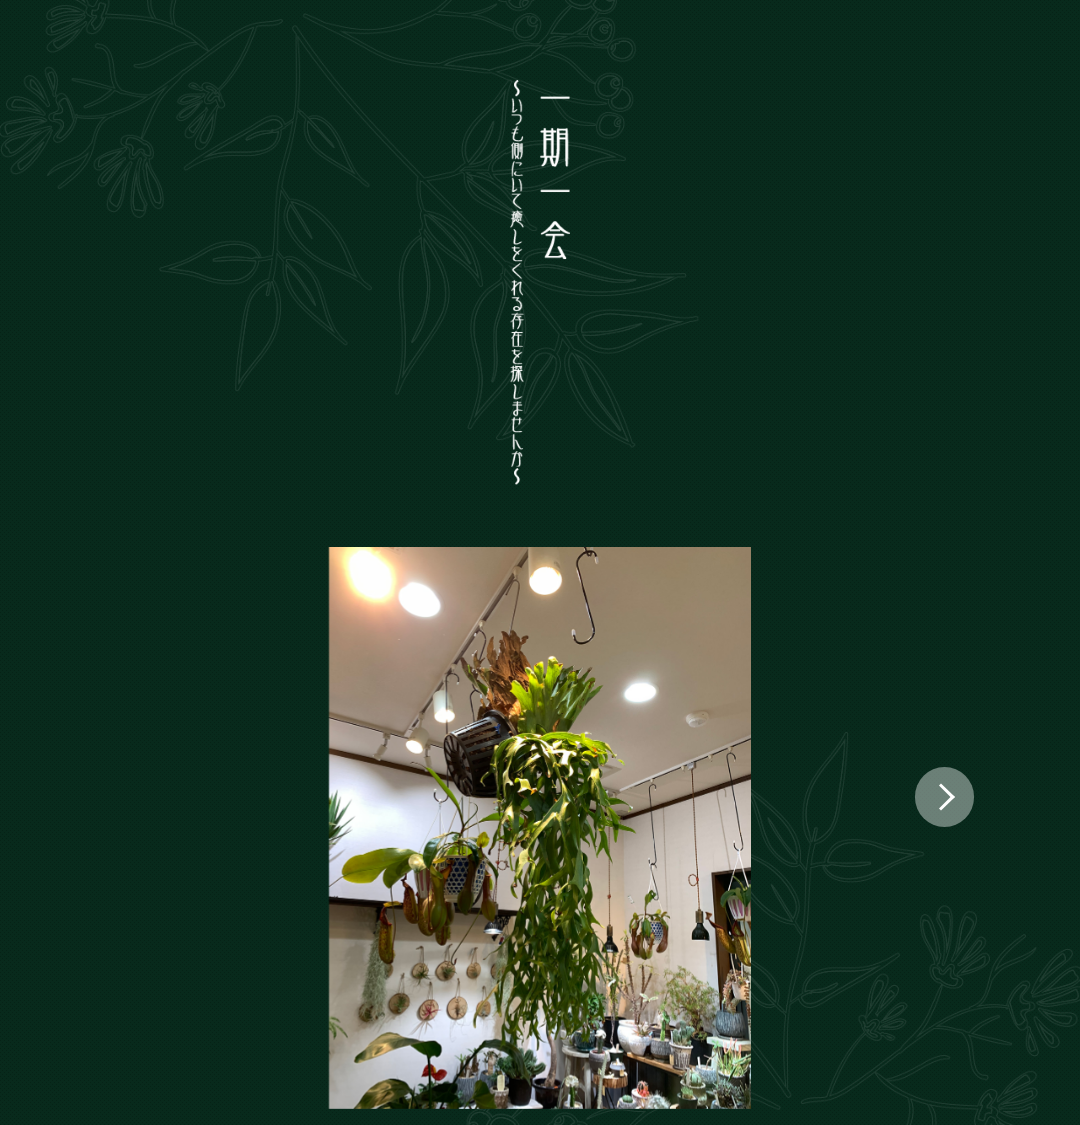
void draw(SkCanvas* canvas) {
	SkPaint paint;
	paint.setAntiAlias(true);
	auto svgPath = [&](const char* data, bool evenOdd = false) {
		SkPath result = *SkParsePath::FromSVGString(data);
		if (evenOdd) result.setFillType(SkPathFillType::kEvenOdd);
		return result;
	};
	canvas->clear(0xffffffff);
	canvas->drawImageRect(SkImages::DeferredFromEncodedData(SkData::MakeFromFileName("img1.png")), SkRect::MakeXYWH(0, 0, 1080, 1125), SkSamplingOptions());
	canvas->drawImageRect(SkImages::DeferredFromEncodedData(SkData::MakeFromFileName("img2.png")), SkRect::MakeXYWH(0, 0, 1080, 1125), SkSamplingOptions());
	canvas->drawImageRect(SkImages::DeferredFromEncodedData(SkData::MakeFromFileName("img3.png")), SkRect::MakeXYWH(510, 80, 60, 405), SkSamplingOptions());
	canvas->drawImageRect(SkImages::DeferredFromEncodedData(SkData::MakeFromFileName("img4.png")), SkRect::MakeXYWH(328, 547, 423, 562), SkSamplingOptions());
	paint.setColor(0x66ffffff);
	canvas->drawRoundRect(SkRect::MakeXYWH(915, 767, 59, 60), 29.5, 29.5, paint);
	paint.setColor(0xffffffff);
	canvas->drawPath(svgPath("M941 783.5L955 797L952.5 799L939 785.5Z"), paint);
	canvas->drawPath(svgPath("M952.5 795L955 797L941 810.5L939 808.5Z"), paint);
}
